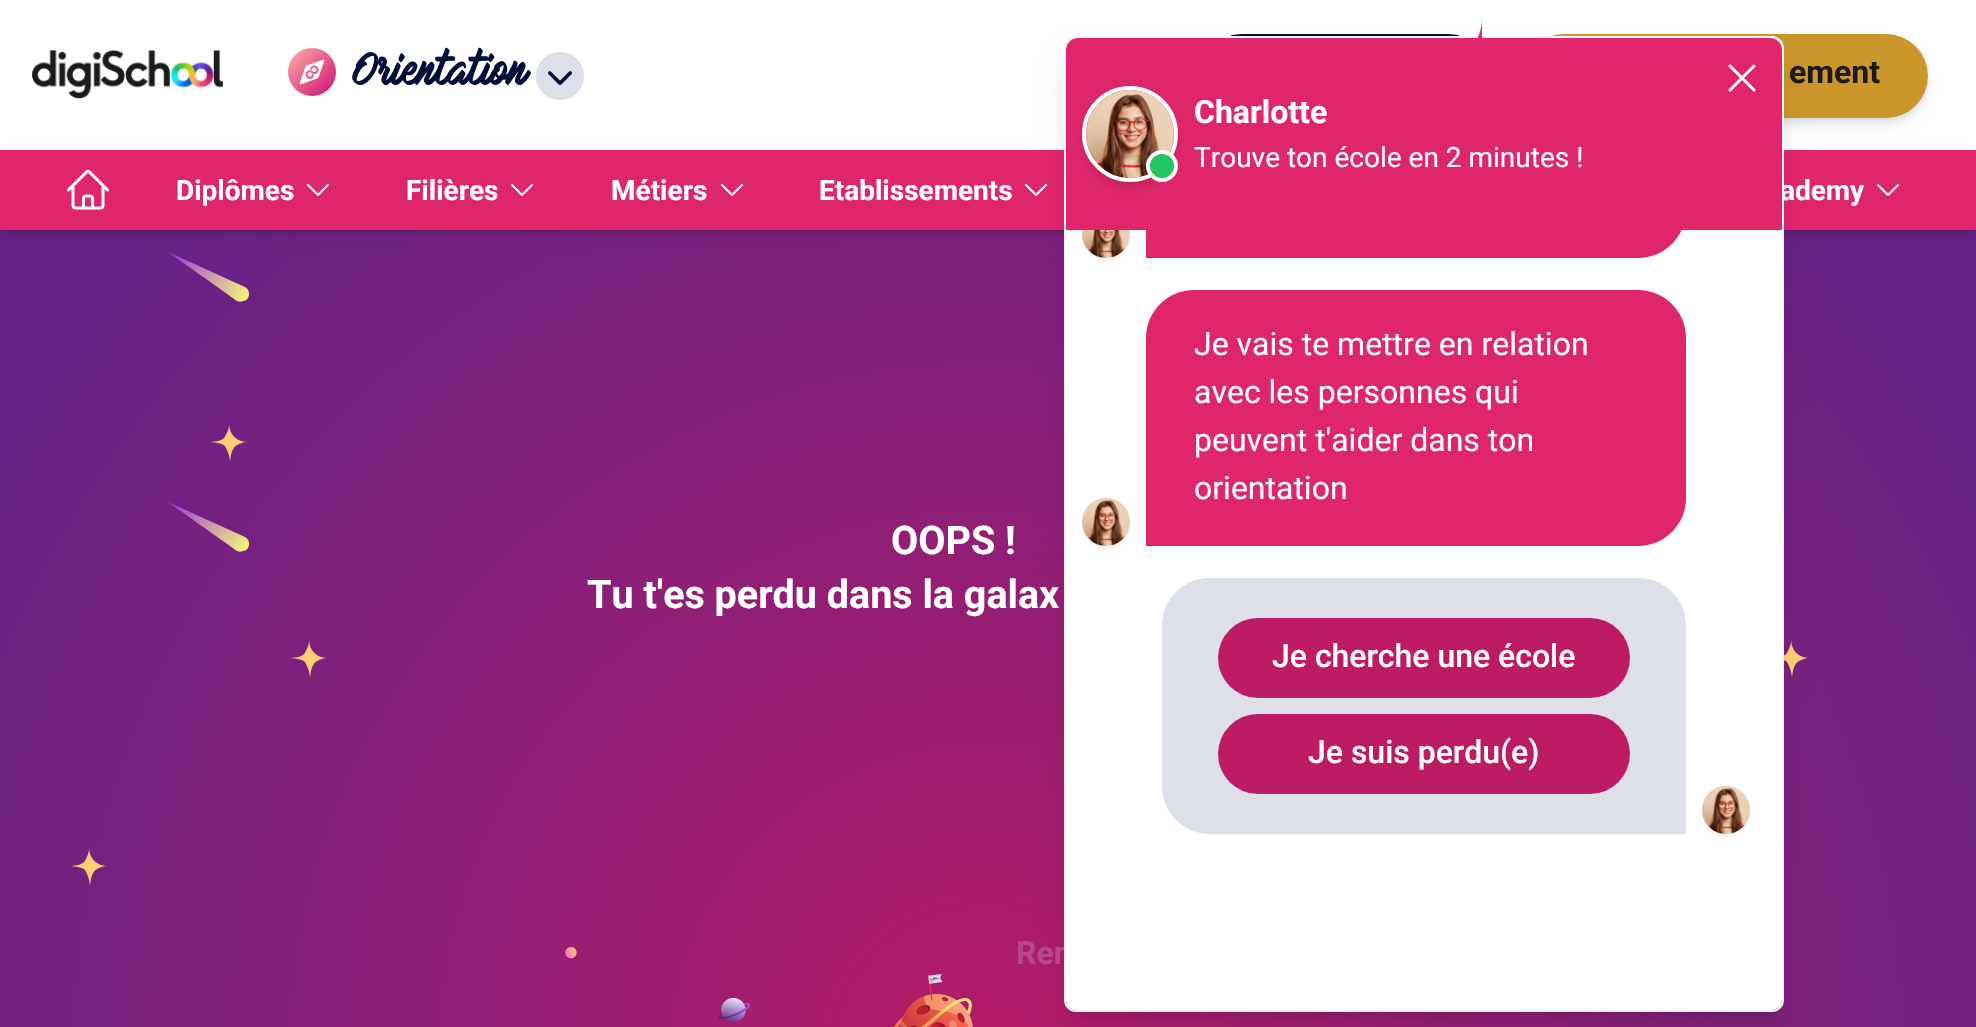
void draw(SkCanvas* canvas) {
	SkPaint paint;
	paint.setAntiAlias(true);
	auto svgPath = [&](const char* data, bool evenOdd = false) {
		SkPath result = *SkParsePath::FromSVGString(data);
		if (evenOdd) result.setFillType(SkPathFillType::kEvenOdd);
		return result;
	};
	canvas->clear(0xffffffff);
	canvas->drawImageRect(SkImages::DeferredFromEncodedData(SkData::MakeFromFileName("img1.png")), SkRect::MakeXYWH(32, 50, 191, 49), SkSamplingOptions());
	canvas->drawImageRect(SkImages::DeferredFromEncodedData(SkData::MakeFromFileName("img2.png")), SkRect::MakeXYWH(288, 48, 48, 48), SkSamplingOptions());
	SkFont f1(fontMgr->matchFamilyStyle("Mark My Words", SkFontStyle::Bold()), 40);
	f1.setSubpixel(true);
	paint.setColor(0xff030f3b);
	canvas->drawString("Orientation", 352, 85, f1, paint);
	paint.setColor(0xffdee0e9);
	canvas->drawCircle(560, 76, 24, paint);
	canvas->drawImageRect(SkImages::DeferredFromEncodedData(SkData::MakeFromFileName("img3.png")), SkRect::MakeXYWH(548, 71, 24, 14), SkSamplingOptions());
	paint.setStroke(true);
	paint.setStrokeWidth(2);
	paint.setColor(0xff030f3b);
	canvas->drawRoundRect(SkRect::MakeXYWH(1201, 35, 288, 82), 41, 41, paint);
	paint.setStroke(false);
	paint.setColor(0x1a000000);
	paint.setMaskFilter(SkMaskFilter::MakeBlur(kNormal_SkBlurStyle, 4));
	canvas->drawRoundRect(SkRect::MakeXYWH(1526, 42, 398, 76), 38, 38, paint);
	paint.setMaskFilter(nullptr);
	paint.setMaskFilter(SkMaskFilter::MakeBlur(kNormal_SkBlurStyle, 6));
	canvas->drawRoundRect(SkRect::MakeXYWH(1524, 44, 402, 80), 40, 40, paint);
	paint.setMaskFilter(nullptr);
	paint.setColor(0xffcb962a);
	canvas->drawRoundRect(SkRect::MakeXYWH(1522, 34, 406, 84), 42, 42, paint);
	SkFont f2(fontMgr->matchFamilyStyle("Roboto", SkFontStyle::Bold()), 32);
	f2.setSubpixel(true);
	paint.setColor(0xff1b1b1d);
	canvas->drawString("ement", 1789, 83, f2, paint);
	{
		const SkColor colors[] = {0xffb51b67, 0xff652387};
		const float stops[] = {0, 0.91};
		paint.setShader(SkGradientShader::MakeRadial({988, 1062}, 1292, colors, stops, 2, SkTileMode::kClamp));
		paint.setAlpha(255);
	}
	canvas->drawRect(SkRect::MakeXYWH(0, 230, 1976, 797), paint);
	paint.setShader(nullptr);
	paint.setColor(0x1a000000);
	paint.setMaskFilter(SkMaskFilter::MakeBlur(kNormal_SkBlurStyle, 4));
	canvas->drawRect(SkRect::MakeXYWH(4, 158, 1968, 72), paint);
	paint.setMaskFilter(nullptr);
	paint.setMaskFilter(SkMaskFilter::MakeBlur(kNormal_SkBlurStyle, 6));
	canvas->drawRect(SkRect::MakeXYWH(2, 160, 1972, 76), paint);
	paint.setMaskFilter(nullptr);
	paint.setColor(0xffe0266a);
	canvas->drawRect(SkRect::MakeXYWH(0, 150, 1976, 80), paint);
	canvas->drawImageRect(SkImages::DeferredFromEncodedData(SkData::MakeFromFileName("img15.png")), SkRect::MakeXYWH(1784, 640, 26, 37), SkSamplingOptions());
	paint.setColor(0x1a000000);
	paint.setMaskFilter(SkMaskFilter::MakeBlur(kNormal_SkBlurStyle, 6));
	canvas->drawRoundRect(SkRect::MakeXYWH(1072, 52, 704, 960), 4, 4, paint);
	paint.setMaskFilter(nullptr);
	paint.setStroke(true);
	paint.setStrokeCap(SkPaint::kRound_Cap);
	paint.setStrokeJoin(SkPaint::kRound_Join);
	paint.setColor(0xffffffff);
	canvas->drawPath(svgPath("M1046 185L1036 195L1026 185"), paint);
	paint.setStroke(false);
	paint.setColor(0x1a000000);
	paint.setMaskFilter(SkMaskFilter::MakeBlur(kNormal_SkBlurStyle, 15));
	canvas->drawRoundRect(SkRect::MakeXYWH(1070, 62, 708, 964), 6, 6, paint);
	paint.setMaskFilter(nullptr);
	paint.setColor(0xffb84788);
	canvas->drawString("Ren", 1016, 964, f2, paint);
	SkFont f3(fontMgr->matchFamilyStyle("Roboto", SkFontStyle::Bold()), 28);
	f3.setSubpixel(true);
	paint.setColor(0xffffffff);
	canvas->drawString("ademy", 1780, 200, f3, paint);
	paint.setStroke(true);
	paint.setStrokeCap(SkPaint::kButt_Cap);
	paint.setStrokeJoin(SkPaint::kMiter_Join);
	paint.setColor(0xfff3f3f8);
	canvas->drawRoundRect(SkRect::MakeXYWH(1065, 37, 718, 974), 11, 11, paint);
	paint.setStroke(false);
	paint.setColor(0xffffffff);
	canvas->drawRoundRect(SkRect::MakeXYWH(1066, 38, 716, 972), 10, 10, paint);
	paint.setColor(0xffe0266a);
	canvas->drawPath(svgPath("M1146 38H1482V18C1482 44.5 1460.5 66 1434 66H1146Z"), paint);
	paint.setColor(0x0d000000);
	paint.setMaskFilter(SkMaskFilter::MakeBlur(kNormal_SkBlurStyle, 2));
	canvas->drawRoundRect(SkRect::MakeXYWH(1082, 212, 48, 48), 24, 24, paint);
	paint.setMaskFilter(nullptr);
	paint.setColor(0xffe0266a);
	canvas->drawPath(svgPath("M1194 98H1638C1664.5 98 1686 119.5 1686 146V210C1686 236.5 1664.5 258 1638 258H1146V146C1146 119.5 1167.5 98 1194 98Z"), paint);
	canvas->save();
	canvas->clipPath(svgPath("M1076 38H1772C1777.5 38 1782 42.5 1782 48V1000C1782 1005.5 1777.5 1010 1772 1010H1076C1070.5 1010 1066 1005.5 1066 1000V48C1066 42.5 1070.5 38 1076 38Z"), true);
	canvas->drawPath(svgPath("M1078 38H1770C1776.5 38 1782 43.5 1782 50V230H1066V50C1066 43.5 1071.5 38 1078 38Z"), paint);
	canvas->restore();
	paint.setColor(0x1a000000);
	paint.setMaskFilter(SkMaskFilter::MakeBlur(kNormal_SkBlurStyle, 4));
	canvas->drawRoundRect(SkRect::MakeXYWH(1086, 94, 88, 88), 44, 44, paint);
	paint.setMaskFilter(nullptr);
	paint.setMaskFilter(SkMaskFilter::MakeBlur(kNormal_SkBlurStyle, 6));
	canvas->drawRoundRect(SkRect::MakeXYWH(1084, 96, 92, 92), 46, 46, paint);
	paint.setMaskFilter(nullptr);
	paint.setStroke(true);
	paint.setStrokeWidth(4);
	paint.setColor(0xffffffff);
	canvas->drawCircle(1130, 134, 46, paint);
	canvas->drawImageRect(SkImages::DeferredFromEncodedData(SkData::MakeFromFileName("img4.png")), SkRect::MakeXYWH(1086, 90, 88, 88), SkSamplingOptions());
	paint.setStroke(false);
	paint.setColor(0xff22c55e);
	canvas->drawCircle(1162, 166, 14, paint);
	paint.setStroke(true);
	paint.setColor(0xffffffff);
	canvas->drawCircle(1162, 166, 14, paint);
	paint.setStroke(false);
	canvas->drawString("Charlotte", 1194, 123, f2, paint);
	SkFont f4(fontMgr->matchFamilyStyle("Roboto", SkFontStyle::Normal()), 28);
	f4.setSubpixel(true);
	canvas->drawString("Trouve ton école en 2 minutes !", 1194, 167, f4, paint);
	paint.setStroke(true);
	paint.setStrokeWidth(3);
	paint.setStrokeCap(SkPaint::kRound_Cap);
	paint.setStrokeJoin(SkPaint::kRound_Join);
	canvas->drawPath(svgPath("M1730 90L1754 66M1730 66L1754 90"), paint);
	canvas->drawImageRect(SkImages::DeferredFromEncodedData(SkData::MakeFromFileName("img5.png")), SkRect::MakeXYWH(1082, 230, 48, 28), SkSamplingOptions());
	paint.setStroke(false);
	paint.setColor(0xffe0266a);
	canvas->drawPath(svgPath("M1194 290H1638C1664.5 290 1686 311.5 1686 338V498C1686 524.5 1664.5 546 1638 546H1146V338C1146 311.5 1167.5 290 1194 290Z"), paint);
	SkFont f5(fontMgr->matchFamilyStyle("Roboto", SkFontStyle::Normal()), 32);
	f5.setSubpixel(true);
	paint.setColor(0xffffffff);
	canvas->drawString("Je vais te mettre en relation", 1194, 355, f5, paint);
	canvas->drawString("avec les personnes qui", 1194, 403, f5, paint);
	canvas->drawString("peuvent t'aider dans ton", 1194, 451, f5, paint);
	canvas->drawString("orientation", 1194, 499, f5, paint);
	paint.setColor(0x0d000000);
	paint.setMaskFilter(SkMaskFilter::MakeBlur(kNormal_SkBlurStyle, 2));
	canvas->drawRoundRect(SkRect::MakeXYWH(1082, 500, 48, 48), 24, 24, paint);
	paint.setMaskFilter(nullptr);
	canvas->drawImageRect(SkImages::DeferredFromEncodedData(SkData::MakeFromFileName("img6.png")), SkRect::MakeXYWH(1082, 498, 48, 48), SkSamplingOptions());
	paint.setColor(0xffdee0e9);
	canvas->drawPath(svgPath("M1210 578H1638C1664.5 578 1686 599.5 1686 626V834H1210C1183.5 834 1162 812.5 1162 786V626C1162 599.5 1183.5 578 1210 578Z"), paint);
	paint.setColor(0xffbe1b65);
	canvas->drawRoundRect(SkRect::MakeXYWH(1218, 618, 412, 80), 40, 40, paint);
	SkFont f6(fontMgr->matchFamilyStyle("Roboto", SkFontStyle(500, SkFontStyle::kNormal_Width, SkFontStyle::kUpright_Slant)), 32);
	f6.setSubpixel(true);
	paint.setColor(0xffffffff);
	canvas->drawString("Je cherche une école", 1272, 667, f6, paint);
	paint.setColor(0xffbe1b65);
	canvas->drawRoundRect(SkRect::MakeXYWH(1218, 714, 412, 80), 40, 40, paint);
	paint.setColor(0xffffffff);
	canvas->drawString("Je suis perdu(e)", 1308, 763, f6, paint);
	paint.setColor(0x0d000000);
	paint.setMaskFilter(SkMaskFilter::MakeBlur(kNormal_SkBlurStyle, 2));
	canvas->drawRoundRect(SkRect::MakeXYWH(1702, 788, 48, 48), 24, 24, paint);
	paint.setMaskFilter(nullptr);
	canvas->drawImageRect(SkImages::DeferredFromEncodedData(SkData::MakeFromFileName("img7.png")), SkRect::MakeXYWH(1702, 786, 48, 48), SkSamplingOptions());
	canvas->drawImageRect(SkImages::DeferredFromEncodedData(SkData::MakeFromFileName("img8.png")), SkRect::MakeXYWH(67, 170, 42, 40), SkSamplingOptions());
	paint.setColor(0xffffffff);
	canvas->drawString("Diplômes", 176, 200, f3, paint);
	paint.setStroke(true);
	paint.setStrokeWidth(2);
	canvas->drawPath(svgPath("M328 185L318 195L308 185"), paint);
	paint.setStroke(false);
	canvas->drawString("Filières", 406, 200, f3, paint);
	paint.setStroke(true);
	canvas->drawPath(svgPath("M532 185L522 195L512 185"), paint);
	paint.setStroke(false);
	canvas->drawString("Métiers", 611, 200, f3, paint);
	paint.setStroke(true);
	canvas->drawPath(svgPath("M742 185L732 195L722 185"), paint);
	paint.setStroke(false);
	canvas->drawString("Etablissements", 819, 200, f3, paint);
	paint.setStroke(true);
	canvas->drawPath(svgPath("M1898 185L1888 195L1878 185"), paint);
	paint.setStroke(false);
	{
		const SkColor colors[] = {0xfff6f479, 0xff983cdd};
		const float stops[] = {0, 1};
		const SkPoint ends[] = {{254, 286}, {178, 243}};
		paint.setShader(SkGradientShader::MakeLinear(ends, colors, stops, 2, SkTileMode::kClamp));
		paint.setAlpha(255);
	}
	canvas->drawPath(svgPath("M168 252C168 252 233 298 237 301C239 302 241 302 243 301C245 301 247 300 248 298C250 294 249 289 245 287Z"), paint);
	canvas->drawImageRect(SkImages::DeferredFromEncodedData(SkData::MakeFromFileName("img9.png")), SkRect::MakeXYWH(210, 424, 38, 37), SkSamplingOptions());
	{
		const SkColor colors[] = {0xfff6f479, 0xff983cdd};
		const float stops[] = {0, 1};
		const SkPoint ends[] = {{254, 536}, {178, 493}};
		paint.setShader(SkGradientShader::MakeLinear(ends, colors, stops, 2, SkTileMode::kClamp));
		paint.setAlpha(255);
	}
	canvas->drawPath(svgPath("M168 502C168 502 233 548 237 551C239 552 241 552 243 551C245 551 247 550 248 548C250 544 249 539 245 537Z"), paint);
	canvas->drawImageRect(SkImages::DeferredFromEncodedData(SkData::MakeFromFileName("img10.png")), SkRect::MakeXYWH(290, 640, 38, 37), SkSamplingOptions());
	canvas->drawImageRect(SkImages::DeferredFromEncodedData(SkData::MakeFromFileName("img11.png")), SkRect::MakeXYWH(70, 848, 38, 37), SkSamplingOptions());
	SkFont f7(fontMgr->matchFamilyStyle("Roboto", SkFontStyle::Bold()), 39.5);
	f7.setSubpixel(true);
	paint.setShader(nullptr);
	paint.setColor(0xffffffff);
	canvas->drawString("OOPS !", 891, 554, f7, paint);
	canvas->drawString("Tu t'es perdu dans la galax", 587, 608, f7, paint);
	canvas->drawImageRect(SkImages::DeferredFromEncodedData(SkData::MakeFromFileName("img12.png")), SkRect::MakeXYWH(565, 947, 12, 12), SkSamplingOptions());
	canvas->drawImageRect(SkImages::DeferredFromEncodedData(SkData::MakeFromFileName("img13.png")), SkRect::MakeXYWH(718, 997, 32, 26), SkSamplingOptions());
	canvas->drawImageRect(SkImages::DeferredFromEncodedData(SkData::MakeFromFileName("img14.png")), SkRect::MakeXYWH(894, 974, 79, 53), SkSamplingOptions());
}
